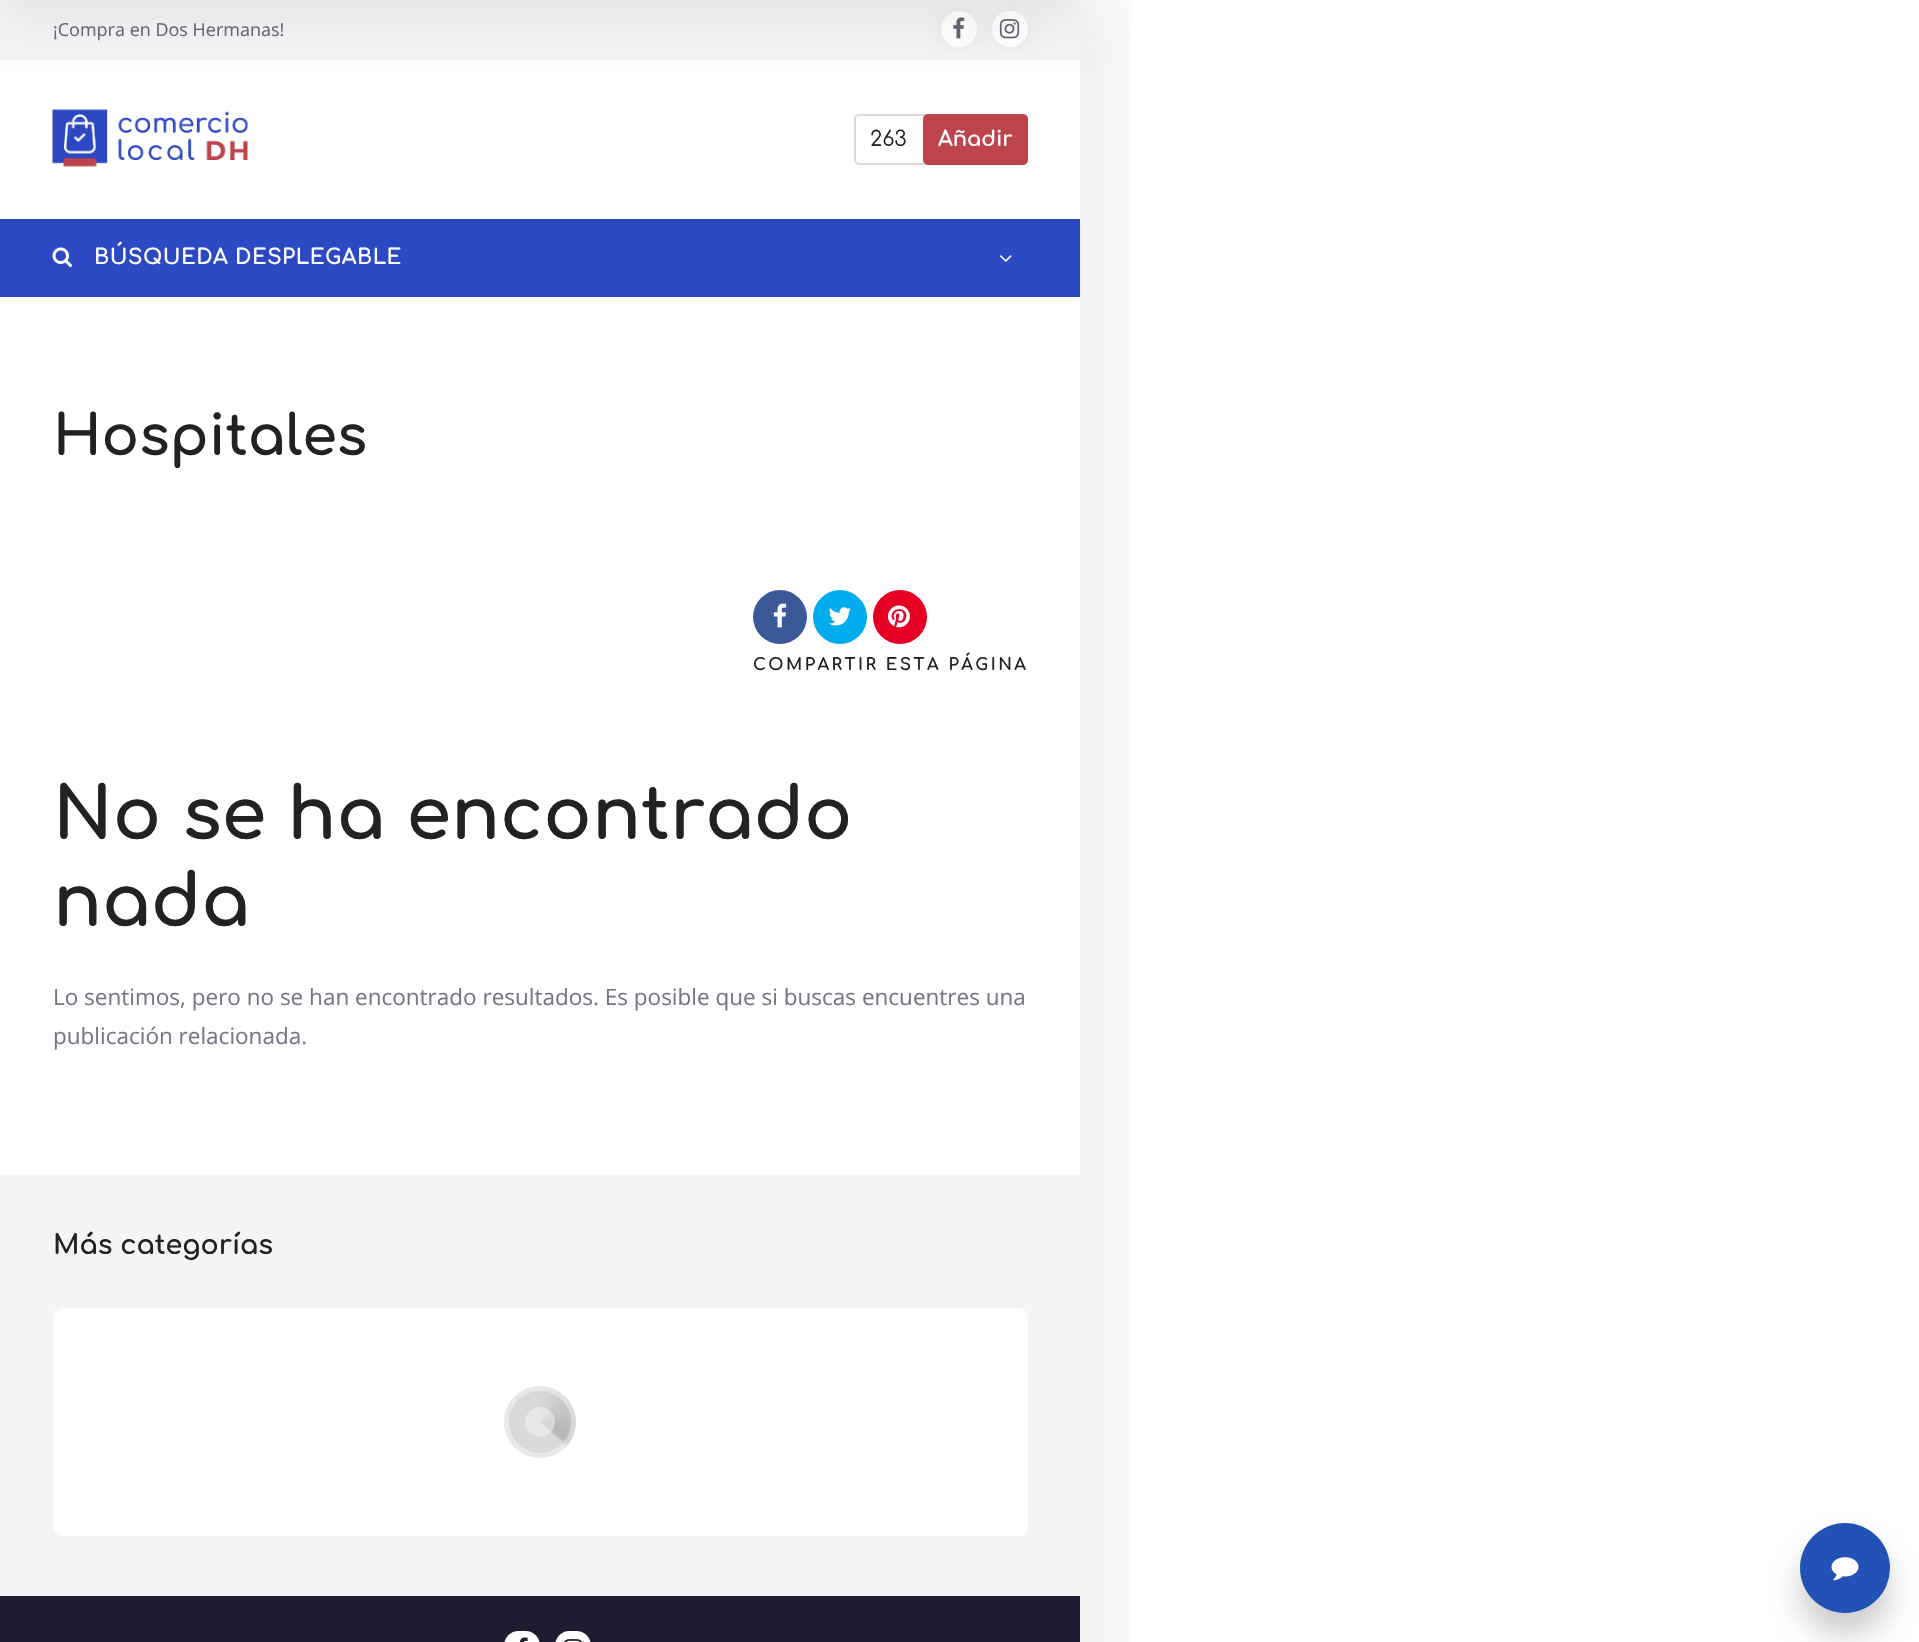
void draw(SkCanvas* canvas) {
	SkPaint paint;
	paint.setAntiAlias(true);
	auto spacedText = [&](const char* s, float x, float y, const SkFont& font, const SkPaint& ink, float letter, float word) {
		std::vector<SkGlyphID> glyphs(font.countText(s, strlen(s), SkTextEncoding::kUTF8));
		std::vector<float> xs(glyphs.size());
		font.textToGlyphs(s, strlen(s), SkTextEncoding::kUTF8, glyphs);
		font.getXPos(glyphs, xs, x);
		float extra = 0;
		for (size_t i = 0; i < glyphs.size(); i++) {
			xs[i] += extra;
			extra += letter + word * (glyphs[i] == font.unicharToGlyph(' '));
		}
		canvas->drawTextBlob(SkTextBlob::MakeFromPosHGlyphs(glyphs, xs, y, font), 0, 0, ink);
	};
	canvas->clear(0xffffffff);
	paint.setColor(0xfff4f4f6);
	canvas->drawRect(SkRect::MakeXYWH(0, 1175, 1080, 421), paint);
	paint.setColor(0xff1f1c31);
	canvas->drawRect(SkRect::MakeXYWH(0, 1596, 1080, 46), paint);
	canvas->save();
	canvas->clipRect(SkRect::MakeXYWH(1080, 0, 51, 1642));
	paint.setColor(0x0d000000);
	paint.setMaskFilter(SkMaskFilter::MakeBlur(kNormal_SkBlurStyle, 22.5));
	canvas->drawRect(SkRect::MakeXYWH(285, 0, 840, 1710), paint);
	paint.setMaskFilter(nullptr);
	canvas->restore();
	paint.setColor(0xfff4f4f6);
	canvas->drawRect(SkRect::MakeXYWH(0, 2, 1080, 58), paint);
	paint.setColor(0x0d000000);
	paint.setMaskFilter(SkMaskFilter::MakeBlur(kNormal_SkBlurStyle, 7.5));
	canvas->drawRoundRect(SkRect::MakeXYWH(941, 11, 36, 36), 18, 18, paint);
	paint.setMaskFilter(nullptr);
	paint.setColor(0xffffffff);
	canvas->drawCircle(959, 29, 18, paint);
	paint.setColor(0x0d000000);
	paint.setMaskFilter(SkMaskFilter::MakeBlur(kNormal_SkBlurStyle, 7.5));
	canvas->drawRoundRect(SkRect::MakeXYWH(992, 11, 36, 36), 18, 18, paint);
	paint.setMaskFilter(nullptr);
	paint.setColor(0xfff2f2f4);
	canvas->drawRect(SkRect::MakeXYWH(0, 0, 1080, 2), paint);
	canvas->drawImageRect(SkImages::DeferredFromEncodedData(SkData::MakeFromFileName("img1.png")), SkRect::MakeXYWH(953, 17, 12, 22), SkSamplingOptions());
	paint.setColor(0xffffffff);
	canvas->drawCircle(1010, 29, 18, paint);
	canvas->drawImageRect(SkImages::DeferredFromEncodedData(SkData::MakeFromFileName("img2.png")), SkRect::MakeXYWH(999, 19, 21, 20), SkSamplingOptions());
	paint.setColor(0x0d000000);
	paint.setMaskFilter(SkMaskFilter::MakeBlur(kNormal_SkBlurStyle, 22.5));
	canvas->drawRect(SkRect::MakeXYWH(0, -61, 1080, 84), paint);
	paint.setMaskFilter(nullptr);
	paint.setColor(0xff2b44b9);
	canvas->drawRect(SkRect::MakeXYWH(0, 219, 1080, 2), paint);
	SkFont f1(fontMgr->matchFamilyStyle("Open Sans", SkFontStyle::Normal()), 18);
	f1.setSubpixel(true);
	paint.setColor(0xff656572);
	canvas->drawString("¡Compra en Dos Hermanas!", 53, 36, f1, paint);
	canvas->drawImageRect(SkImages::DeferredFromEncodedData(SkData::MakeFromFileName("img3.png")), SkRect::MakeXYWH(52, 109, 196, 58), SkSamplingOptions());
	paint.setStroke(true);
	paint.setStrokeWidth(2);
	paint.setColor(0xffdbdbdb);
	canvas->drawRoundRect(SkRect::MakeXYWH(855, 115, 172, 49), 4, 4, paint);
	SkFont f2(fontMgr->matchFamilyStyle("Comfortaa", SkFontStyle::Normal()), 21);
	f2.setSubpixel(true);
	paint.setStroke(false);
	paint.setColor(0xff222222);
	canvas->drawString("263", 870, 146, f2, paint);
	paint.setColor(0xffbd444c);
	canvas->drawRoundRect(SkRect::MakeXYWH(923, 114, 105, 51), 5, 5, paint);
	SkFont f3(fontMgr->matchFamilyStyle("Comfortaa", SkFontStyle::Bold()), 21);
	f3.setSubpixel(true);
	paint.setColor(0xffffffff);
	canvas->drawString("Añadir", 938, 146, f3, paint);
	paint.setColor(0xff2d48c3);
	canvas->drawRect(SkRect::MakeXYWH(0, 221, 1080, 76), paint);
	canvas->drawImageRect(SkImages::DeferredFromEncodedData(SkData::MakeFromFileName("img4.png")), SkRect::MakeXYWH(52, 247, 20, 20), SkSamplingOptions());
	paint.setColor(0xffffffff);
	spacedText("BÚSQUEDA DESPLEGABLE", 94, 264, f3, paint, 0.5, 0);
	canvas->drawImageRect(SkImages::DeferredFromEncodedData(SkData::MakeFromFileName("img5.png")), SkRect::MakeXYWH(1000, 255, 12, 7), SkSamplingOptions());
	SkFont f4(fontMgr->matchFamilyStyle("Comfortaa", SkFontStyle::Bold()), 55.75);
	f4.setSubpixel(true);
	paint.setColor(0xff222222);
	canvas->drawString("Hospitales", 53, 455, f4, paint);
	paint.setColor(0xff3b5998);
	canvas->drawCircle(780, 617, 27, paint);
	canvas->drawImageRect(SkImages::DeferredFromEncodedData(SkData::MakeFromFileName("img6.png")), SkRect::MakeXYWH(773, 603, 14, 25), SkSamplingOptions());
	paint.setColor(0xff00aced);
	canvas->drawCircle(840, 617, 27, paint);
	canvas->drawImageRect(SkImages::DeferredFromEncodedData(SkData::MakeFromFileName("img7.png")), SkRect::MakeXYWH(828, 607, 23, 19), SkSamplingOptions());
	paint.setColor(0xffe60023);
	canvas->drawCircle(900, 617, 27, paint);
	canvas->drawImageRect(SkImages::DeferredFromEncodedData(SkData::MakeFromFileName("img8.png")), SkRect::MakeXYWH(888, 605, 22, 23), SkSamplingOptions());
	SkFont f5(fontMgr->matchFamilyStyle("Comfortaa", SkFontStyle::Bold()), 16.5);
	f5.setSubpixel(true);
	paint.setColor(0xff222222);
	spacedText("COMPARTIR ESTA PÁGINA", 753, 670, f5, paint, 2.5, 0);
	SkFont f6(fontMgr->matchFamilyStyle("Comfortaa", SkFontStyle::Bold()), 72);
	f6.setSubpixel(true);
	canvas->drawString("No se ha encontrado", 53, 839, f6, paint);
	canvas->drawString("nada", 53, 926, f6, paint);
	SkFont f7(fontMgr->matchFamilyStyle("Open Sans", SkFontStyle::Normal()), 22.5);
	f7.setSubpixel(true);
	paint.setColor(0xff767685);
	canvas->drawString("Lo sentimos, pero no se han encontrado resultados. Es posible que si buscas encuentres una", 53, 1005, f7, paint);
	canvas->drawString("publicación relacionada.", 53, 1044, f7, paint);
	SkFont f8(fontMgr->matchFamilyStyle("Comfortaa", SkFontStyle::Bold()), 27);
	f8.setSubpixel(true);
	paint.setColor(0xff222222);
	canvas->drawString("Más categorías", 53, 1254, f8, paint);
	paint.setColor(0xffffffff);
	canvas->drawRoundRect(SkRect::MakeXYWH(53, 1308, 975, 228), 9, 9, paint);
	canvas->drawImageRect(SkImages::DeferredFromEncodedData(SkData::MakeFromFileName("img9.png")), SkRect::MakeXYWH(504, 1386, 72, 72), SkSamplingOptions());
	paint.setStroke(true);
	paint.setStrokeWidth(5);
	paint.setColor(0x66ffffff);
	canvas->drawCircle(540, 1422, 33.5, paint);
	paint.setStroke(false);
	canvas->drawCircle(540, 1422, 15, paint);
	paint.setColor(0xffffffff);
	canvas->drawRoundRect(SkRect::MakeXYWH(504, 1631, 36, 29), 18, 18, paint);
	canvas->drawImageRect(SkImages::DeferredFromEncodedData(SkData::MakeFromFileName("img10.png")), SkRect::MakeXYWH(520, 1637, 8, 5), SkSamplingOptions());
	canvas->drawRoundRect(SkRect::MakeXYWH(555, 1631, 36, 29), 18, 18, paint);
	canvas->drawImageRect(SkImages::DeferredFromEncodedData(SkData::MakeFromFileName("img11.png")), SkRect::MakeXYWH(564, 1639, 18, 3), SkSamplingOptions());
	paint.setColor(0x33000000);
	paint.setMaskFilter(SkMaskFilter::MakeBlur(kNormal_SkBlurStyle, 15));
	canvas->drawRoundRect(SkRect::MakeXYWH(1800, 1545, 90, 90), 45, 45, paint);
	paint.setMaskFilter(nullptr);
	paint.setColor(0xff2352b6);
	canvas->drawCircle(1845, 1568, 45, paint);
	canvas->drawImageRect(SkImages::DeferredFromEncodedData(SkData::MakeFromFileName("img12.png")), SkRect::MakeXYWH(1831, 1557, 28, 24), SkSamplingOptions());
}
